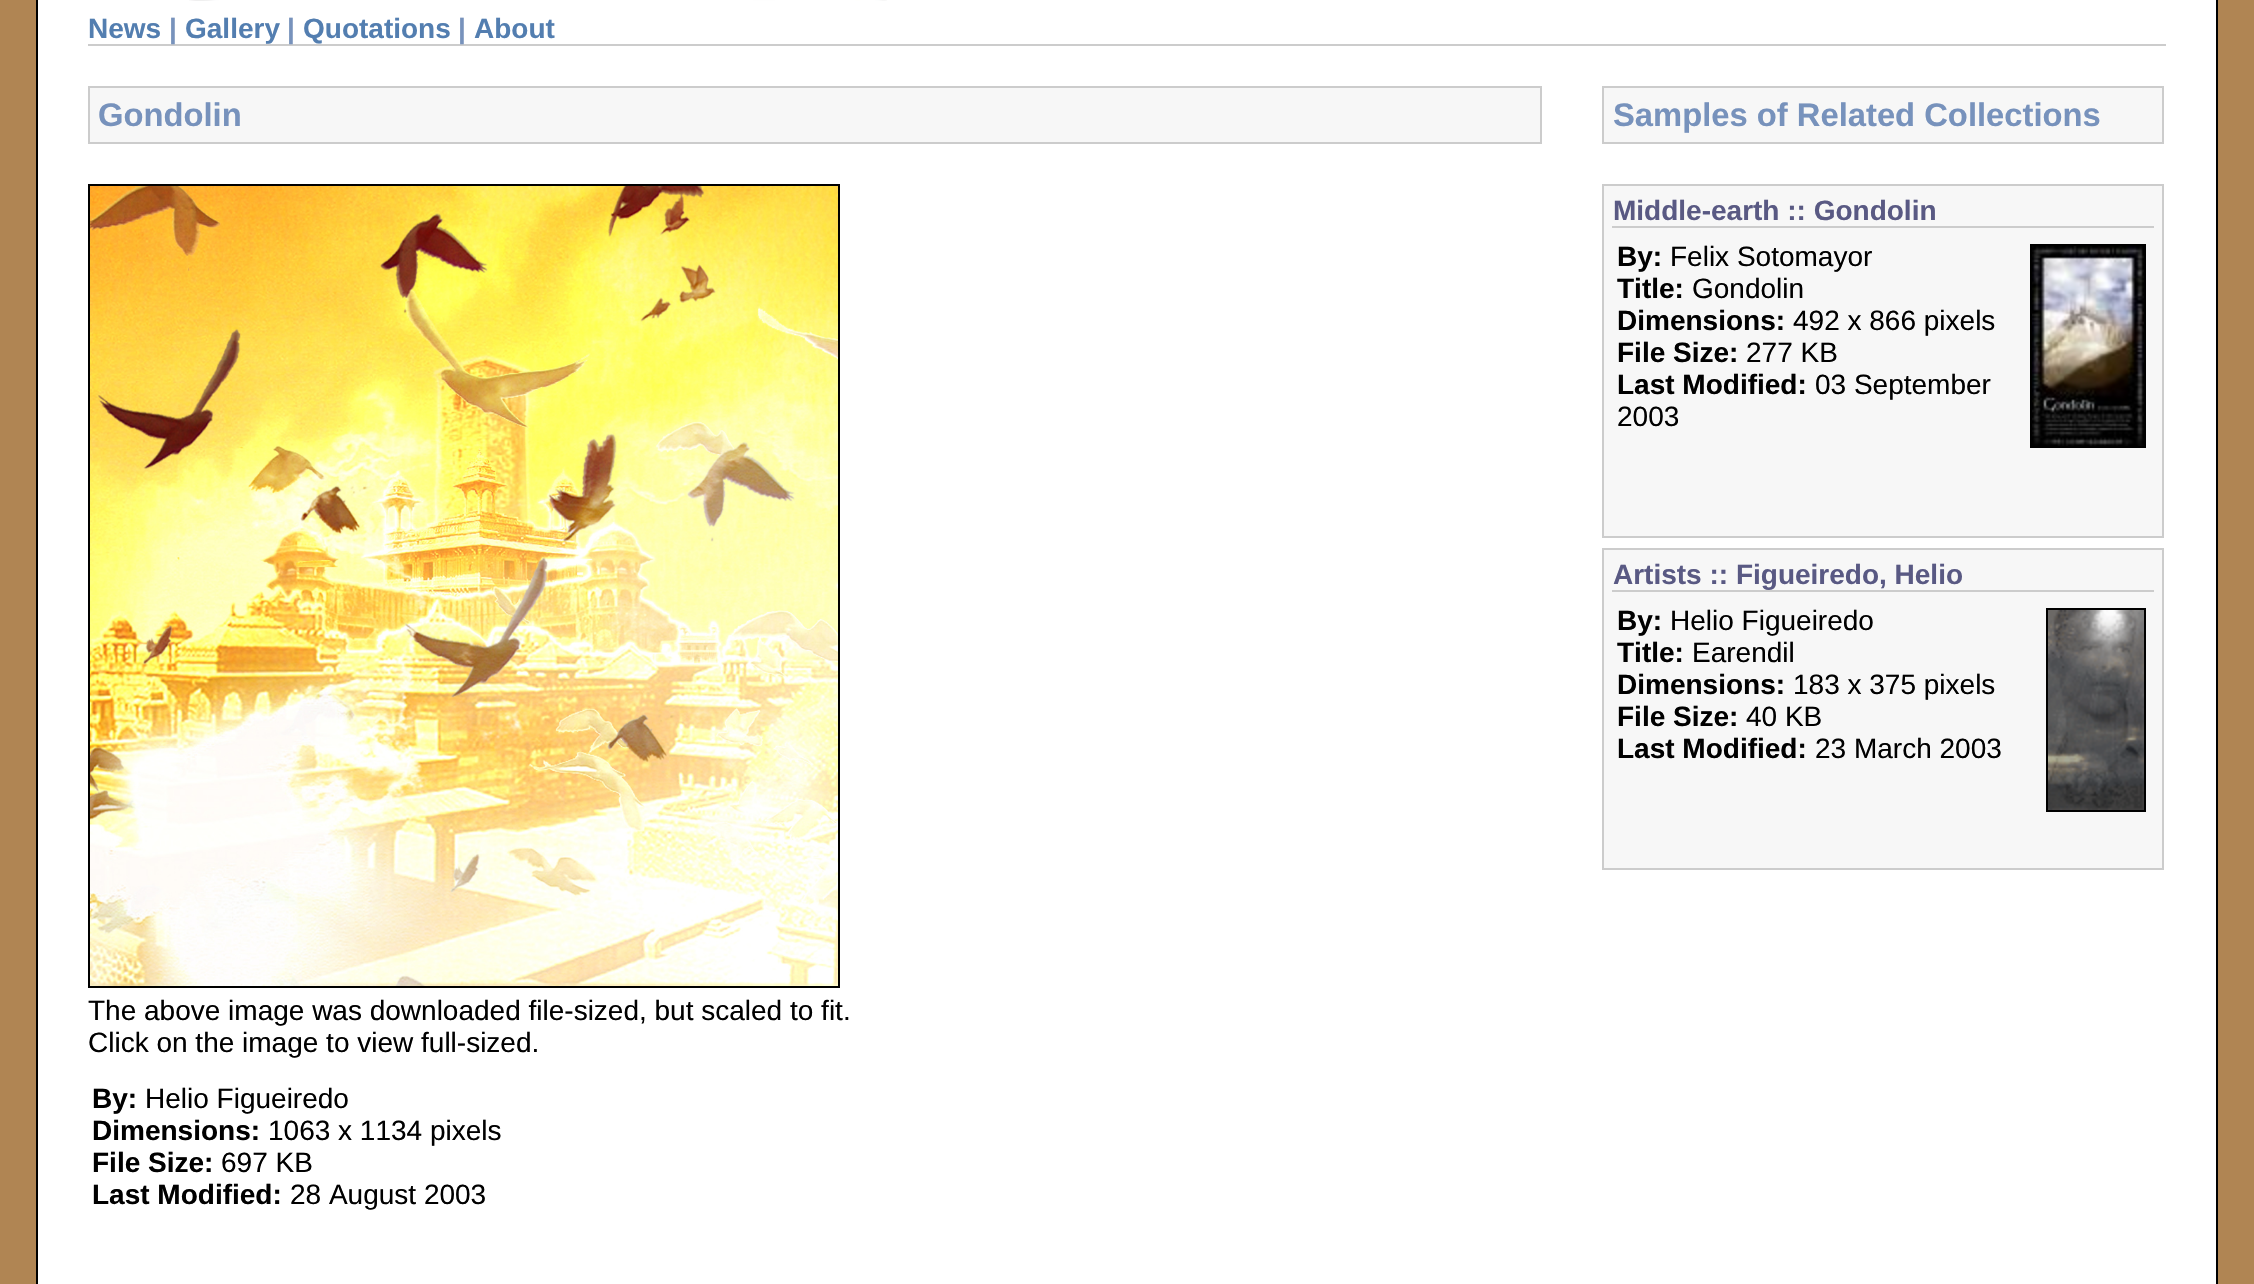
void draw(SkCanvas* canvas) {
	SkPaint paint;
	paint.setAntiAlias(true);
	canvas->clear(0xffb08553);
	paint.setColor(0xffffffff);
	canvas->drawRect(SkRect::MakeXYWH(37, -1, 2180, 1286), paint);
	paint.setStroke(true);
	paint.setStrokeWidth(2);
	paint.setColor(0xff000000);
	canvas->drawRect(SkRect::MakeXYWH(37, -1, 2180, 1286), paint);
	canvas->drawImageRect(SkImages::DeferredFromEncodedData(SkData::MakeFromFileName("img1.png")), SkRect::MakeXYWH(189, 0, 698, 1), SkSamplingOptions());
	paint.setStroke(false);
	paint.setColor(0xffcccccc);
	canvas->drawRect(SkRect::MakeXYWH(88, 44, 2078, 2), paint);
	SkFont f1(fontMgr->matchFamilyStyle("Liberation Sans", SkFontStyle::Bold()), 28);
	f1.setSubpixel(true);
	paint.setColor(0xff537eb0);
	canvas->drawString("News", 88, 38, f1, paint);
	paint.setColor(0xff7792bc);
	canvas->drawString("|", 169, 38, f1, paint);
	paint.setColor(0xff537eb0);
	canvas->drawString("Gallery", 185, 38, f1, paint);
	paint.setColor(0xff7792bc);
	canvas->drawString("|", 287, 38, f1, paint);
	paint.setColor(0xff537eb0);
	canvas->drawString("Quotations", 303, 38, f1, paint);
	paint.setColor(0xff7792bc);
	canvas->drawString("|", 458, 38, f1, paint);
	paint.setColor(0xff537eb0);
	canvas->drawString("About", 474, 38, f1, paint);
	paint.setColor(0xfff7f7f7);
	canvas->drawRect(SkRect::MakeXYWH(89, 87, 1452, 56), paint);
	paint.setStroke(true);
	paint.setColor(0xffcccccc);
	canvas->drawRect(SkRect::MakeXYWH(89, 87, 1452, 56), paint);
	SkFont f2(fontMgr->matchFamilyStyle("Liberation Sans", SkFontStyle::Bold()), 32.75);
	f2.setSubpixel(true);
	paint.setStroke(false);
	paint.setColor(0xff7792bc);
	canvas->drawString("Gondolin", 98, 126, f2, paint);
	paint.setStroke(true);
	paint.setColor(0xff000000);
	canvas->drawRect(SkRect::MakeXYWH(89, 185, 750, 802), paint);
	canvas->drawImageRect(SkImages::DeferredFromEncodedData(SkData::MakeFromFileName("img2.png")), SkRect::MakeXYWH(90, 186, 748, 800), SkSamplingOptions());
	SkFont f3(fontMgr->matchFamilyStyle("Liberation Sans", SkFontStyle::Normal()), 28);
	f3.setSubpixel(true);
	paint.setStroke(false);
	canvas->drawString("The above image was downloaded file-sized, but scaled to fit.", 88, 1020, f3, paint);
	canvas->drawString("Click on the image to view full-sized.", 88, 1052, f3, paint);
	canvas->drawString("By:", 92, 1108, f1, paint);
	canvas->drawString("Helio Figueiredo", 145, 1108, f3, paint);
	canvas->drawString("Dimensions:", 92, 1140, f1, paint);
	canvas->drawString("1063 x 1134 pixels", 268, 1140, f3, paint);
	canvas->drawString("File Size:", 92, 1172, f1, paint);
	canvas->drawString("697 KB", 221, 1172, f3, paint);
	canvas->drawString("Last Modified:", 92, 1204, f1, paint);
	canvas->drawString("28 August 2003", 290, 1204, f3, paint);
	paint.setColor(0xfff7f7f7);
	canvas->drawRect(SkRect::MakeXYWH(1603, 87, 560, 56), paint);
	paint.setStroke(true);
	paint.setColor(0xffcccccc);
	canvas->drawRect(SkRect::MakeXYWH(1603, 87, 560, 56), paint);
	paint.setStroke(false);
	paint.setColor(0xff7792bc);
	canvas->drawString("Samples of Related Collections", 1613, 126, f2, paint);
	paint.setColor(0xfff7f7f7);
	canvas->drawRect(SkRect::MakeXYWH(1603, 185, 560, 352), paint);
	paint.setStroke(true);
	paint.setColor(0xffcccccc);
	canvas->drawRect(SkRect::MakeXYWH(1603, 185, 560, 352), paint);
	paint.setStroke(false);
	canvas->drawRect(SkRect::MakeXYWH(1612, 226, 542, 2), paint);
	paint.setColor(0xff595983);
	canvas->drawString("Middle-earth :: Gondolin", 1613, 220, f1, paint);
	paint.setColor(0xff000000);
	canvas->drawString("By:", 1617, 266, f1, paint);
	canvas->drawString("Felix Sotomayor", 1670, 266, f3, paint);
	canvas->drawString("Title:", 1617, 298, f1, paint);
	canvas->drawString("Gondolin", 1692, 298, f3, paint);
	canvas->drawString("Dimensions:", 1617, 330, f1, paint);
	canvas->drawString("492 x 866 pixels", 1793, 330, f3, paint);
	canvas->drawString("File Size:", 1617, 362, f1, paint);
	canvas->drawString("277 KB", 1746, 362, f3, paint);
	canvas->drawString("Last Modified:", 1617, 394, f1, paint);
	canvas->drawString("03 September", 1815, 394, f3, paint);
	canvas->drawString("2003", 1617, 426, f3, paint);
	paint.setStroke(true);
	canvas->drawRect(SkRect::MakeXYWH(2031, 245, 114, 202), paint);
	canvas->drawImageRect(SkImages::DeferredFromEncodedData(SkData::MakeFromFileName("img3.png")), SkRect::MakeXYWH(2032, 246, 112, 200), SkSamplingOptions());
	paint.setStroke(false);
	paint.setColor(0xfff7f7f7);
	canvas->drawRect(SkRect::MakeXYWH(1603, 549, 560, 320), paint);
	paint.setStroke(true);
	paint.setColor(0xffcccccc);
	canvas->drawRect(SkRect::MakeXYWH(1603, 549, 560, 320), paint);
	paint.setStroke(false);
	canvas->drawRect(SkRect::MakeXYWH(1612, 590, 542, 2), paint);
	paint.setColor(0xff595983);
	canvas->drawString("Artists :: Figueiredo, Helio", 1613, 584, f1, paint);
	paint.setColor(0xff000000);
	canvas->drawString("By:", 1617, 630, f1, paint);
	canvas->drawString("Helio Figueiredo", 1670, 630, f3, paint);
	canvas->drawString("Title:", 1617, 662, f1, paint);
	canvas->drawString("Earendil", 1692, 662, f3, paint);
	canvas->drawString("Dimensions:", 1617, 694, f1, paint);
	canvas->drawString("183 x 375 pixels", 1793, 694, f3, paint);
	canvas->drawString("File Size:", 1617, 726, f1, paint);
	canvas->drawString("40 KB", 1746, 726, f3, paint);
	canvas->drawString("Last Modified:", 1617, 758, f1, paint);
	canvas->drawString("23 March 2003", 1815, 758, f3, paint);
	paint.setStroke(true);
	canvas->drawRect(SkRect::MakeXYWH(2047, 609, 98, 202), paint);
	canvas->drawImageRect(SkImages::DeferredFromEncodedData(SkData::MakeFromFileName("img4.png")), SkRect::MakeXYWH(2048, 610, 96, 200), SkSamplingOptions());
}
